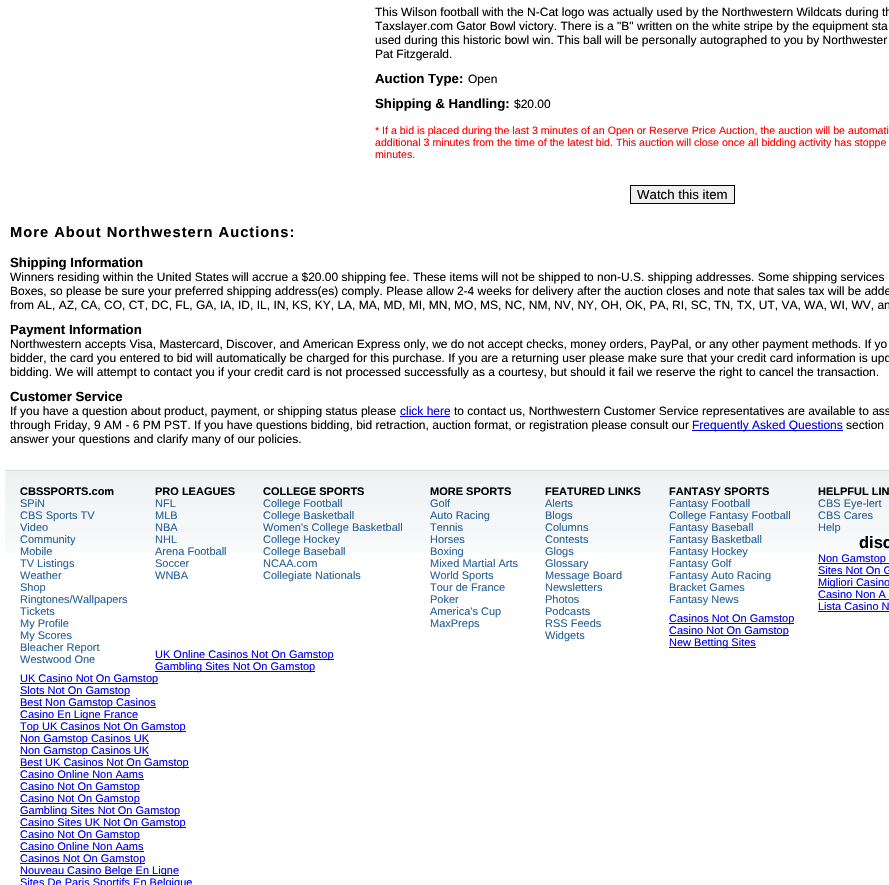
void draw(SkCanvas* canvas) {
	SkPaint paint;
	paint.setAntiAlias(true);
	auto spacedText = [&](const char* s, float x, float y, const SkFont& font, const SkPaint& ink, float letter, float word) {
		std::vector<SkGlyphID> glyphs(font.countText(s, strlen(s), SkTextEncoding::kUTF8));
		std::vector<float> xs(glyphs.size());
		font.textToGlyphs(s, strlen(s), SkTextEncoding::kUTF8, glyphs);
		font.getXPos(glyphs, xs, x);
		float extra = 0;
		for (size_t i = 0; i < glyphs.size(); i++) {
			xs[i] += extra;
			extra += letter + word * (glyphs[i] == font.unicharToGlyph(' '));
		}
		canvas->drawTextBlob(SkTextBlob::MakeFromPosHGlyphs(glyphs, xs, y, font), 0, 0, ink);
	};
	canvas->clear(0xffffffff);
	SkFont f1(fontMgr->matchFamilyStyle("Liberation Sans", SkFontStyle::Normal()), 12);
	f1.setSubpixel(true);
	paint.setColor(0xff000000);
	canvas->drawString("This Wilson football with the N-Cat logo was actually used by the Northwestern Wildcats during th", 375, 16, f1, paint);
	canvas->drawString("Taxslayer.com Gator Bowl victory. There is a \"B\" written on the white stripe by the equipment sta", 375, 30, f1, paint);
	canvas->drawString("used during this historic bowl win. This ball will be personally autographed to you by Northwester", 375, 44, f1, paint);
	canvas->drawString("Pat Fitzgerald.", 375, 58, f1, paint);
	SkFont f2(fontMgr->matchFamilyStyle("Liberation Sans", SkFontStyle::Bold()), 13.25);
	f2.setSubpixel(true);
	canvas->drawString("Auction Type:", 375, 83, f2, paint);
	canvas->drawString("Open", 468, 83, f1, paint);
	canvas->drawString("Shipping & Handling:", 375, 108, f2, paint);
	canvas->drawString("$20.00", 514, 108, f1, paint);
	SkFont f3(fontMgr->matchFamilyStyle("Liberation Sans", SkFontStyle::Normal()), 10.65);
	f3.setSubpixel(true);
	paint.setColor(0xffff0000);
	canvas->drawString("* If a bid is placed during the last 3 minutes of an Open or Reserve Price Auction, the auction will be automati", 375, 134, f3, paint);
	canvas->drawString("additional 3 minutes from the time of the latest bid. This auction will close once all bidding activity has stoppe", 375, 146, f3, paint);
	canvas->drawString("minutes.", 375, 158, f3, paint);
	paint.setColor(0xffefefef);
	canvas->drawRect(SkRect::MakeXYWH(630.5, 185.5, 104, 18), paint);
	paint.setStroke(true);
	paint.setStrokeWidth(1);
	paint.setColor(0xff000000);
	canvas->drawRect(SkRect::MakeXYWH(630.5, 185.5, 104, 18), paint);
	SkFont f4(fontMgr->matchFamilyStyle("Liberation Sans", SkFontStyle::Normal()), 13.25);
	f4.setSubpixel(true);
	paint.setStroke(false);
	canvas->drawString("Watch this item", 637, 199, f4, paint);
	SkFont f5(fontMgr->matchFamilyStyle("Liberation Sans", SkFontStyle::Bold()), 14.7);
	f5.setSubpixel(true);
	spacedText("More About Northwestern Auctions:", 10, 237, f5, paint, 1, 0);
	canvas->drawString("Shipping Information", 10, 267, f2, paint);
	canvas->drawString("Winners residing within the United States will accrue a $20.00 shipping fee. These items will not be shipped to non-U.S. shipping addresses. Some shipping services", 10, 281, f1, paint);
	canvas->drawString("Boxes, so please be sure your preferred shipping address(es) comply. Please allow 2-4 weeks for delivery after the auction closes and note that sales tax will be adde", 10, 295, f1, paint);
	canvas->drawString("from AL, AZ, CA, CO, CT, DC, FL, GA, IA, ID, IL, IN, KS, KY, LA, MA, MD, MI, MN, MO, MS, NC, NM, NV, NY, OH, OK, PA, RI, SC, TN, TX, UT, VA, WA, WI, WV, an", 10, 309, f1, paint);
	canvas->drawString("Payment Information", 10, 334, f2, paint);
	canvas->drawString("Northwestern accepts Visa, Mastercard, Discover, and American Express only, we do not accept checks, money orders, PayPal, or any other payment methods. If yo", 10, 348, f1, paint);
	canvas->drawString("bidder, the card you entered to bid will automatically be charged for this purchase. If you are a returning user please make sure that your credit card information is upd", 10, 362, f1, paint);
	canvas->drawString("bidding. We will attempt to contact you if your credit card is not processed successfully as a courtesy, but should it fail we reserve the right to cancel the transaction.", 10, 376, f1, paint);
	canvas->drawString("Customer Service", 10, 401, f2, paint);
	canvas->drawString("If you have a question about product, payment, or shipping status please", 10, 415, f1, paint);
	paint.setColor(0xff0000ee);
	canvas->drawString("click here", 400, 415, f1, paint);
	canvas->drawRect(SkRect::MakeXYWH(400, 416, 50, 1), paint);
	paint.setColor(0xff000000);
	canvas->drawString("to contact us, Northwestern Customer Service representatives are available to ass", 454, 415, f1, paint);
	canvas->drawString("through Friday, 9 AM - 6 PM PST. If you have questions bidding, bid retraction, auction format, or registration please consult our", 10, 429, f1, paint);
	paint.setColor(0xff0000ee);
	canvas->drawRect(SkRect::MakeXYWH(692, 430, 151, 1), paint);
	canvas->drawString("Frequently Asked Questions", 692, 429, f1, paint);
	paint.setColor(0xff000000);
	canvas->drawString("section", 846, 429, f1, paint);
	canvas->drawString("answer your questions and clarify many of our policies.", 10, 443, f1, paint);
	canvas->drawImageRect(SkImages::DeferredFromEncodedData(SkData::MakeFromFileName("img1.png")), SkRect::MakeXYWH(5, 470, 884, 83), SkSamplingOptions());
	SkFont f6(fontMgr->matchFamilyStyle("Liberation Sans", SkFontStyle::Bold()), 11);
	f6.setSubpixel(true);
	canvas->drawString("CBSSPORTS.com", 20, 495, f6, paint);
	SkFont f7(fontMgr->matchFamilyStyle("Liberation Sans", SkFontStyle::Normal()), 11);
	f7.setSubpixel(true);
	paint.setColor(0xff276098);
	canvas->drawString("SPiN", 20, 507, f7, paint);
	canvas->drawString("CBS Sports TV", 20, 519, f7, paint);
	canvas->drawString("Video", 20, 531, f7, paint);
	canvas->drawString("Community", 20, 543, f7, paint);
	canvas->drawString("Mobile", 20, 555, f7, paint);
	canvas->drawString("TV Listings", 20, 567, f7, paint);
	canvas->drawString("Weather", 20, 579, f7, paint);
	canvas->drawString("Shop", 20, 591, f7, paint);
	canvas->drawString("Ringtones/Wallpapers", 20, 603, f7, paint);
	canvas->drawString("Tickets", 20, 615, f7, paint);
	canvas->drawString("My Profile", 20, 627, f7, paint);
	canvas->drawString("My Scores", 20, 639, f7, paint);
	canvas->drawString("Bleacher Report", 20, 651, f7, paint);
	canvas->drawString("Westwood One", 20, 663, f7, paint);
	paint.setColor(0xff000000);
	canvas->drawString("PRO LEAGUES", 155, 495, f6, paint);
	paint.setColor(0xff276098);
	canvas->drawString("NFL", 155, 507, f7, paint);
	canvas->drawString("MLB", 155, 519, f7, paint);
	canvas->drawString("NBA", 155, 531, f7, paint);
	canvas->drawString("NHL", 155, 543, f7, paint);
	canvas->drawString("Arena Football", 155, 555, f7, paint);
	canvas->drawString("Soccer", 155, 567, f7, paint);
	canvas->drawString("WNBA", 155, 579, f7, paint);
	paint.setColor(0xff000000);
	canvas->drawString("COLLEGE SPORTS", 263, 495, f6, paint);
	paint.setColor(0xff276098);
	canvas->drawString("College Football", 263, 507, f7, paint);
	canvas->drawString("College Basketball", 263, 519, f7, paint);
	canvas->drawString("Women's College Basketball", 263, 531, f7, paint);
	canvas->drawString("College Hockey", 263, 543, f7, paint);
	canvas->drawString("College Baseball", 263, 555, f7, paint);
	canvas->drawString("NCAA.com", 263, 567, f7, paint);
	canvas->drawString("Collegiate Nationals", 263, 579, f7, paint);
	paint.setColor(0xff000000);
	canvas->drawString("MORE SPORTS", 430, 495, f6, paint);
	paint.setColor(0xff276098);
	canvas->drawString("Golf", 430, 507, f7, paint);
	canvas->drawString("Auto Racing", 430, 519, f7, paint);
	canvas->drawString("Tennis", 430, 531, f7, paint);
	canvas->drawString("Horses", 430, 543, f7, paint);
	canvas->drawString("Boxing", 430, 555, f7, paint);
	canvas->drawString("Mixed Martial Arts", 430, 567, f7, paint);
	canvas->drawString("World Sports", 430, 579, f7, paint);
	canvas->drawString("Tour de France", 430, 591, f7, paint);
	canvas->drawString("Poker", 430, 603, f7, paint);
	canvas->drawString("America's Cup", 430, 615, f7, paint);
	canvas->drawString("MaxPreps", 430, 627, f7, paint);
	paint.setColor(0xff000000);
	canvas->drawString("FEATURED LINKS", 545, 495, f6, paint);
	paint.setColor(0xff276098);
	canvas->drawString("Alerts", 545, 507, f7, paint);
	canvas->drawString("Blogs", 545, 519, f7, paint);
	canvas->drawString("Columns", 545, 531, f7, paint);
	canvas->drawString("Contests", 545, 543, f7, paint);
	canvas->drawString("Glogs", 545, 555, f7, paint);
	canvas->drawString("Glossary", 545, 567, f7, paint);
	canvas->drawString("Message Board", 545, 579, f7, paint);
	canvas->drawString("Newsletters", 545, 591, f7, paint);
	canvas->drawString("Photos", 545, 603, f7, paint);
	canvas->drawString("Podcasts", 545, 615, f7, paint);
	canvas->drawString("RSS Feeds", 545, 627, f7, paint);
	canvas->drawString("Widgets", 545, 639, f7, paint);
	paint.setColor(0xff000000);
	canvas->drawString("FANTASY SPORTS", 669, 495, f6, paint);
	paint.setColor(0xff276098);
	canvas->drawString("Fantasy Football", 669, 507, f7, paint);
	canvas->drawString("College Fantasy Football", 669, 519, f7, paint);
	canvas->drawString("Fantasy Baseball", 669, 531, f7, paint);
	canvas->drawString("Fantasy Basketball", 669, 543, f7, paint);
	canvas->drawString("Fantasy Hockey", 669, 555, f7, paint);
	canvas->drawString("Fantasy Golf", 669, 567, f7, paint);
	canvas->drawString("Fantasy Auto Racing", 669, 579, f7, paint);
	canvas->drawString("Bracket Games", 669, 591, f7, paint);
	canvas->drawString("Fantasy News", 669, 603, f7, paint);
	paint.setColor(0xff000000);
	canvas->drawString("HELPFUL LIN", 818, 495, f6, paint);
	paint.setColor(0xff276098);
	canvas->drawString("CBS Eye-lert", 818, 507, f7, paint);
	canvas->drawString("CBS Cares", 818, 519, f7, paint);
	canvas->drawString("Help", 818, 531, f7, paint);
	SkFont f8(fontMgr->matchFamilyStyle("Liberation Sans", SkFontStyle::Bold()), 16.5);
	f8.setSubpixel(true);
	paint.setColor(0xff000000);
	canvas->drawString("disc", 859, 548, f8, paint);
	paint.setColor(0xff0000ee);
	canvas->drawRect(SkRect::MakeXYWH(818, 563, 71, 1), paint);
	canvas->drawString("Non Gamstop", 818, 562, f7, paint);
	canvas->drawString("Sites Not On G", 818, 574, f7, paint);
	canvas->drawRect(SkRect::MakeXYWH(818, 575, 71, 1), paint);
	canvas->drawRect(SkRect::MakeXYWH(818, 587, 71, 1), paint);
	canvas->drawString("Migliori Casino", 818, 586, f7, paint);
	canvas->drawString("Casino Non A", 818, 598, f7, paint);
	canvas->drawRect(SkRect::MakeXYWH(818, 599, 71, 1), paint);
	canvas->drawString("Lista Casino N", 818, 610, f7, paint);
	canvas->drawRect(SkRect::MakeXYWH(818, 611, 71, 1), paint);
	canvas->drawRect(SkRect::MakeXYWH(669, 623, 125, 1), paint);
	canvas->drawString("Casinos Not On Gamstop", 669, 622, f7, paint);
	canvas->drawRect(SkRect::MakeXYWH(669, 635, 120, 1), paint);
	canvas->drawString("Casino Not On Gamstop", 669, 634, f7, paint);
	canvas->drawRect(SkRect::MakeXYWH(669, 647, 87, 1), paint);
	canvas->drawString("New Betting Sites", 669, 646, f7, paint);
	canvas->drawRect(SkRect::MakeXYWH(155, 659, 179, 1), paint);
	canvas->drawString("UK Online Casinos Not On Gamstop", 155, 658, f7, paint);
	canvas->drawRect(SkRect::MakeXYWH(155, 671, 160, 1), paint);
	canvas->drawString("Gambling Sites Not On Gamstop", 155, 670, f7, paint);
	canvas->drawRect(SkRect::MakeXYWH(20, 683, 138, 1), paint);
	canvas->drawString("UK Casino Not On Gamstop", 20, 682, f7, paint);
	canvas->drawRect(SkRect::MakeXYWH(20, 695, 110, 1), paint);
	canvas->drawString("Slots Not On Gamstop", 20, 694, f7, paint);
	canvas->drawRect(SkRect::MakeXYWH(20, 707, 136, 1), paint);
	canvas->drawString("Best Non Gamstop Casinos", 20, 706, f7, paint);
	canvas->drawRect(SkRect::MakeXYWH(20, 719, 118, 1), paint);
	canvas->drawString("Casino En Ligne France", 20, 718, f7, paint);
	canvas->drawRect(SkRect::MakeXYWH(20, 731, 166, 1), paint);
	canvas->drawString("Top UK Casinos Not On Gamstop", 20, 730, f7, paint);
	canvas->drawRect(SkRect::MakeXYWH(20, 743, 129, 1), paint);
	canvas->drawString("Non Gamstop Casinos UK", 20, 742, f7, paint);
	canvas->drawRect(SkRect::MakeXYWH(20, 755, 129, 1), paint);
	canvas->drawString("Non Gamstop Casinos UK", 20, 754, f7, paint);
	canvas->drawRect(SkRect::MakeXYWH(20, 767, 169, 1), paint);
	canvas->drawString("Best UK Casinos Not On Gamstop", 20, 766, f7, paint);
	canvas->drawString("Casino Online Non Aams", 20, 778, f7, paint);
	canvas->drawRect(SkRect::MakeXYWH(20, 779, 124, 1), paint);
	canvas->drawRect(SkRect::MakeXYWH(20, 791, 120, 1), paint);
	canvas->drawString("Casino Not On Gamstop", 20, 790, f7, paint);
	canvas->drawRect(SkRect::MakeXYWH(20, 803, 120, 1), paint);
	canvas->drawString("Casino Not On Gamstop", 20, 802, f7, paint);
	canvas->drawRect(SkRect::MakeXYWH(20, 815, 160, 1), paint);
	canvas->drawString("Gambling Sites Not On Gamstop", 20, 814, f7, paint);
	canvas->drawRect(SkRect::MakeXYWH(20, 827, 166, 1), paint);
	canvas->drawString("Casino Sites UK Not On Gamstop", 20, 826, f7, paint);
	canvas->drawRect(SkRect::MakeXYWH(20, 839, 120, 1), paint);
	canvas->drawString("Casino Not On Gamstop", 20, 838, f7, paint);
	canvas->drawString("Casino Online Non Aams", 20, 850, f7, paint);
	canvas->drawRect(SkRect::MakeXYWH(20, 851, 124, 1), paint);
	canvas->drawRect(SkRect::MakeXYWH(20, 863, 125, 1), paint);
	canvas->drawString("Casinos Not On Gamstop", 20, 862, f7, paint);
	canvas->drawRect(SkRect::MakeXYWH(20, 875, 159, 1), paint);
	canvas->drawString("Nouveau Casino Belge En Ligne", 20, 874, f7, paint);
	canvas->drawString("Sites De Paris Sportifs En Belgique", 20, 886, f7, paint);
}
